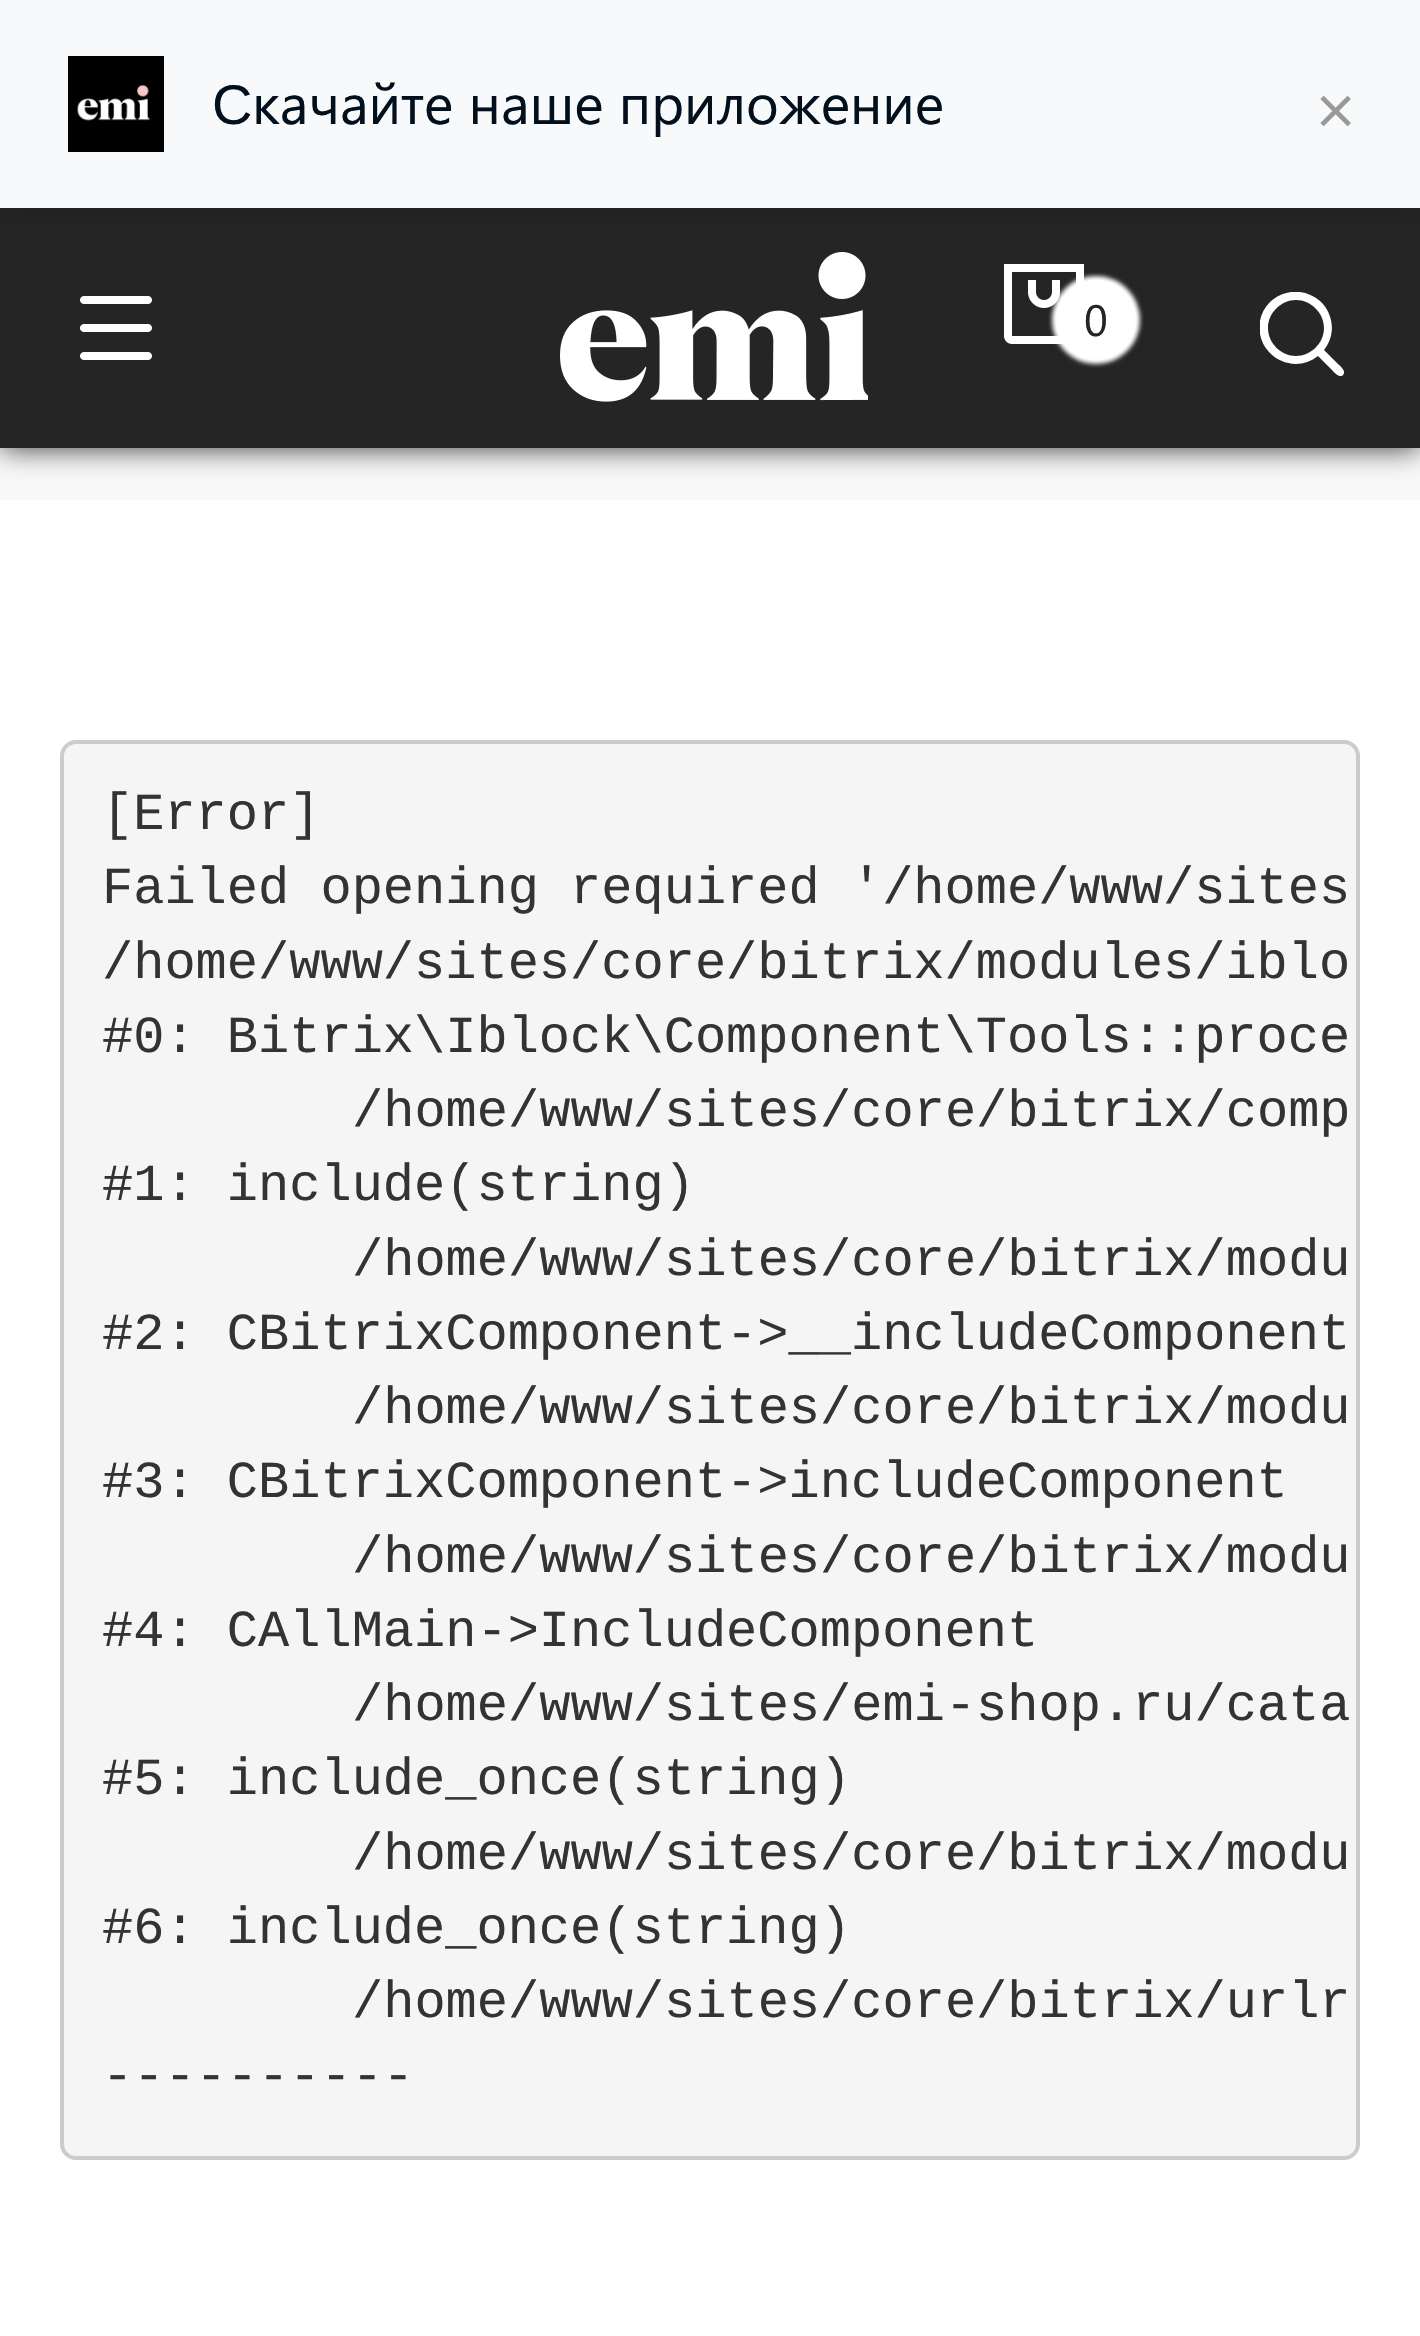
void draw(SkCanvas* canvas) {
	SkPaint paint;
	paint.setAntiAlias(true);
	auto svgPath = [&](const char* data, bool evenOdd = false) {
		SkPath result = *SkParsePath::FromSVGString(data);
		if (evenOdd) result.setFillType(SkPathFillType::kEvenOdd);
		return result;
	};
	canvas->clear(0xffffffff);
	paint.setColor(0xfff9f9f9);
	canvas->drawRect(SkRect::MakeXYWH(0, 448, 1420, 52), paint);
	paint.setColor(0xff333333);
	paint.setMaskFilter(SkMaskFilter::MakeBlur(kNormal_SkBlurStyle, 14));
	canvas->drawRect(SkRect::MakeXYWH(0, 208, 1420, 240), paint);
	paint.setMaskFilter(nullptr);
	paint.setColor(0xff252525);
	canvas->drawRect(SkRect::MakeXYWH(0, 208, 1420, 240), paint);
	paint.setColor(0x1a000000);
	paint.setMaskFilter(SkMaskFilter::MakeBlur(kNormal_SkBlurStyle, 10));
	canvas->drawRect(SkRect::MakeXYWH(0, 8, 1420, 208), paint);
	paint.setMaskFilter(nullptr);
	paint.setColor(0xfff8f9fa);
	canvas->drawRect(SkRect::MakeXYWH(0, 0, 1420, 208), paint);
	canvas->drawImageRect(SkImages::DeferredFromEncodedData(SkData::MakeFromFileName("img1.png")), SkRect::MakeXYWH(68, 56, 96, 96), SkSamplingOptions());
	SkFont f1(fontMgr->matchFamilyStyle("Liberation Sans", SkFontStyle::Normal()), 56);
	f1.setSubpixel(true);
	paint.setColor(0xff02101e);
	canvas->drawString("С", 212, 124, f1, paint);
	SkFont f2(fontMgr->matchFamilyStyle("Segoe UI", SkFontStyle::Normal()), 56);
	f2.setSubpixel(true);
	canvas->drawString("качайте наше приложение", 252, 124, f2, paint);
	SkFont f3(fontMgr->matchFamilyStyle("Segoe UI", SkFontStyle::Normal()), 72);
	f3.setSubpixel(true);
	paint.setColor(0xff999999);
	canvas->drawString("×", 1311, 132, f3, paint);
	canvas->drawImageRect(SkImages::DeferredFromEncodedData(SkData::MakeFromFileName("img2.png")), SkRect::MakeXYWH(80, 296, 72, 64), SkSamplingOptions());
	canvas->drawImageRect(SkImages::DeferredFromEncodedData(SkData::MakeFromFileName("img3.png")), SkRect::MakeXYWH(560, 252, 308, 150), SkSamplingOptions());
	canvas->drawImageRect(SkImages::DeferredFromEncodedData(SkData::MakeFromFileName("img4.png")), SkRect::MakeXYWH(1004, 264, 80, 80), SkSamplingOptions());
	paint.setColor(0xffffffff);
	paint.setMaskFilter(SkMaskFilter::MakeBlur(kNormal_SkBlurStyle, 2));
	canvas->drawRoundRect(SkRect::MakeXYWH(1052, 276, 88, 88), 44, 44, paint);
	paint.setMaskFilter(nullptr);
	canvas->drawCircle(1096, 320, 40, paint);
	SkFont f4(fontMgr->matchFamilyStyle("Segoe UI", SkFontStyle::Normal()), 44);
	f4.setSubpixel(true);
	paint.setColor(0xff252525);
	canvas->drawString("0", 1084, 336, f4, paint);
	canvas->save();
	canvas->clipRect(SkRect::MakeXYWH(1260, 292, 84, 84));
	paint.setColor(0xffffffff);
	canvas->drawPath(svgPath("M1343 375C1339 379 1333 371 1331 369L1318 356C1303 368 1282 366 1269 352C1256 338 1256 316 1270 302C1284 289 1305 288 1320 301C1334 314 1336 335 1324 350L1337 363C1339 365 1347 371 1343 375ZM1296 300C1281 300 1268 313 1268 328C1268 343 1281 356 1296 356C1311 356 1324 343 1324 328C1324 313 1311 300 1296 300Z", true), paint);
	canvas->restore();
	paint.setColor(0xfff5f5f5);
	canvas->drawRoundRect(SkRect::MakeXYWH(62, 742, 1296, 1416), 14, 14, paint);
	paint.setStroke(true);
	paint.setStrokeWidth(4);
	paint.setColor(0xffcccccc);
	canvas->drawRoundRect(SkRect::MakeXYWH(62, 742, 1296, 1416), 14, 14, paint);
	SkFont f5(fontMgr->matchFamilyStyle("Liberation Mono", SkFontStyle::Normal()), 52);
	f5.setSubpixel(true);
	paint.setStroke(false);
	paint.setColor(0xff333333);
	canvas->drawString("[Error]", 102, 829, f5, paint);
	canvas->drawString("Failed opening required '/home/www/sites", 102, 903, f5, paint);
	canvas->drawString("/home/www/sites/core/bitrix/modules/iblo", 102, 978, f5, paint);
	canvas->drawString("#0: Bitrix\\Iblock\\Component\\Tools::proce", 102, 1052, f5, paint);
	canvas->drawString("/home/www/sites/core/bitrix/comp", 352, 1126, f5, paint);
	canvas->drawString("#1: include(string)", 102, 1200, f5, paint);
	canvas->drawString("/home/www/sites/core/bitrix/modu", 352, 1275, f5, paint);
	canvas->drawString("#2: CBitrixComponent->__includeComponent", 102, 1349, f5, paint);
	canvas->drawString("/home/www/sites/core/bitrix/modu", 352, 1423, f5, paint);
	canvas->drawString("#3: CBitrixComponent->includeComponent", 102, 1497, f5, paint);
	canvas->drawString("/home/www/sites/core/bitrix/modu", 352, 1572, f5, paint);
	canvas->drawString("#4: CAllMain->IncludeComponent", 102, 1646, f5, paint);
	canvas->drawString("/home/www/sites/emi-shop.ru/cata", 352, 1720, f5, paint);
	canvas->drawString("#5: include_once(string)", 102, 1794, f5, paint);
	canvas->drawString("/home/www/sites/core/bitrix/modu", 352, 1869, f5, paint);
	canvas->drawString("#6: include_once(string)", 102, 1943, f5, paint);
	canvas->drawString("/home/www/sites/core/bitrix/urlr", 352, 2017, f5, paint);
	canvas->drawString("----------", 102, 2091, f5, paint);
}
